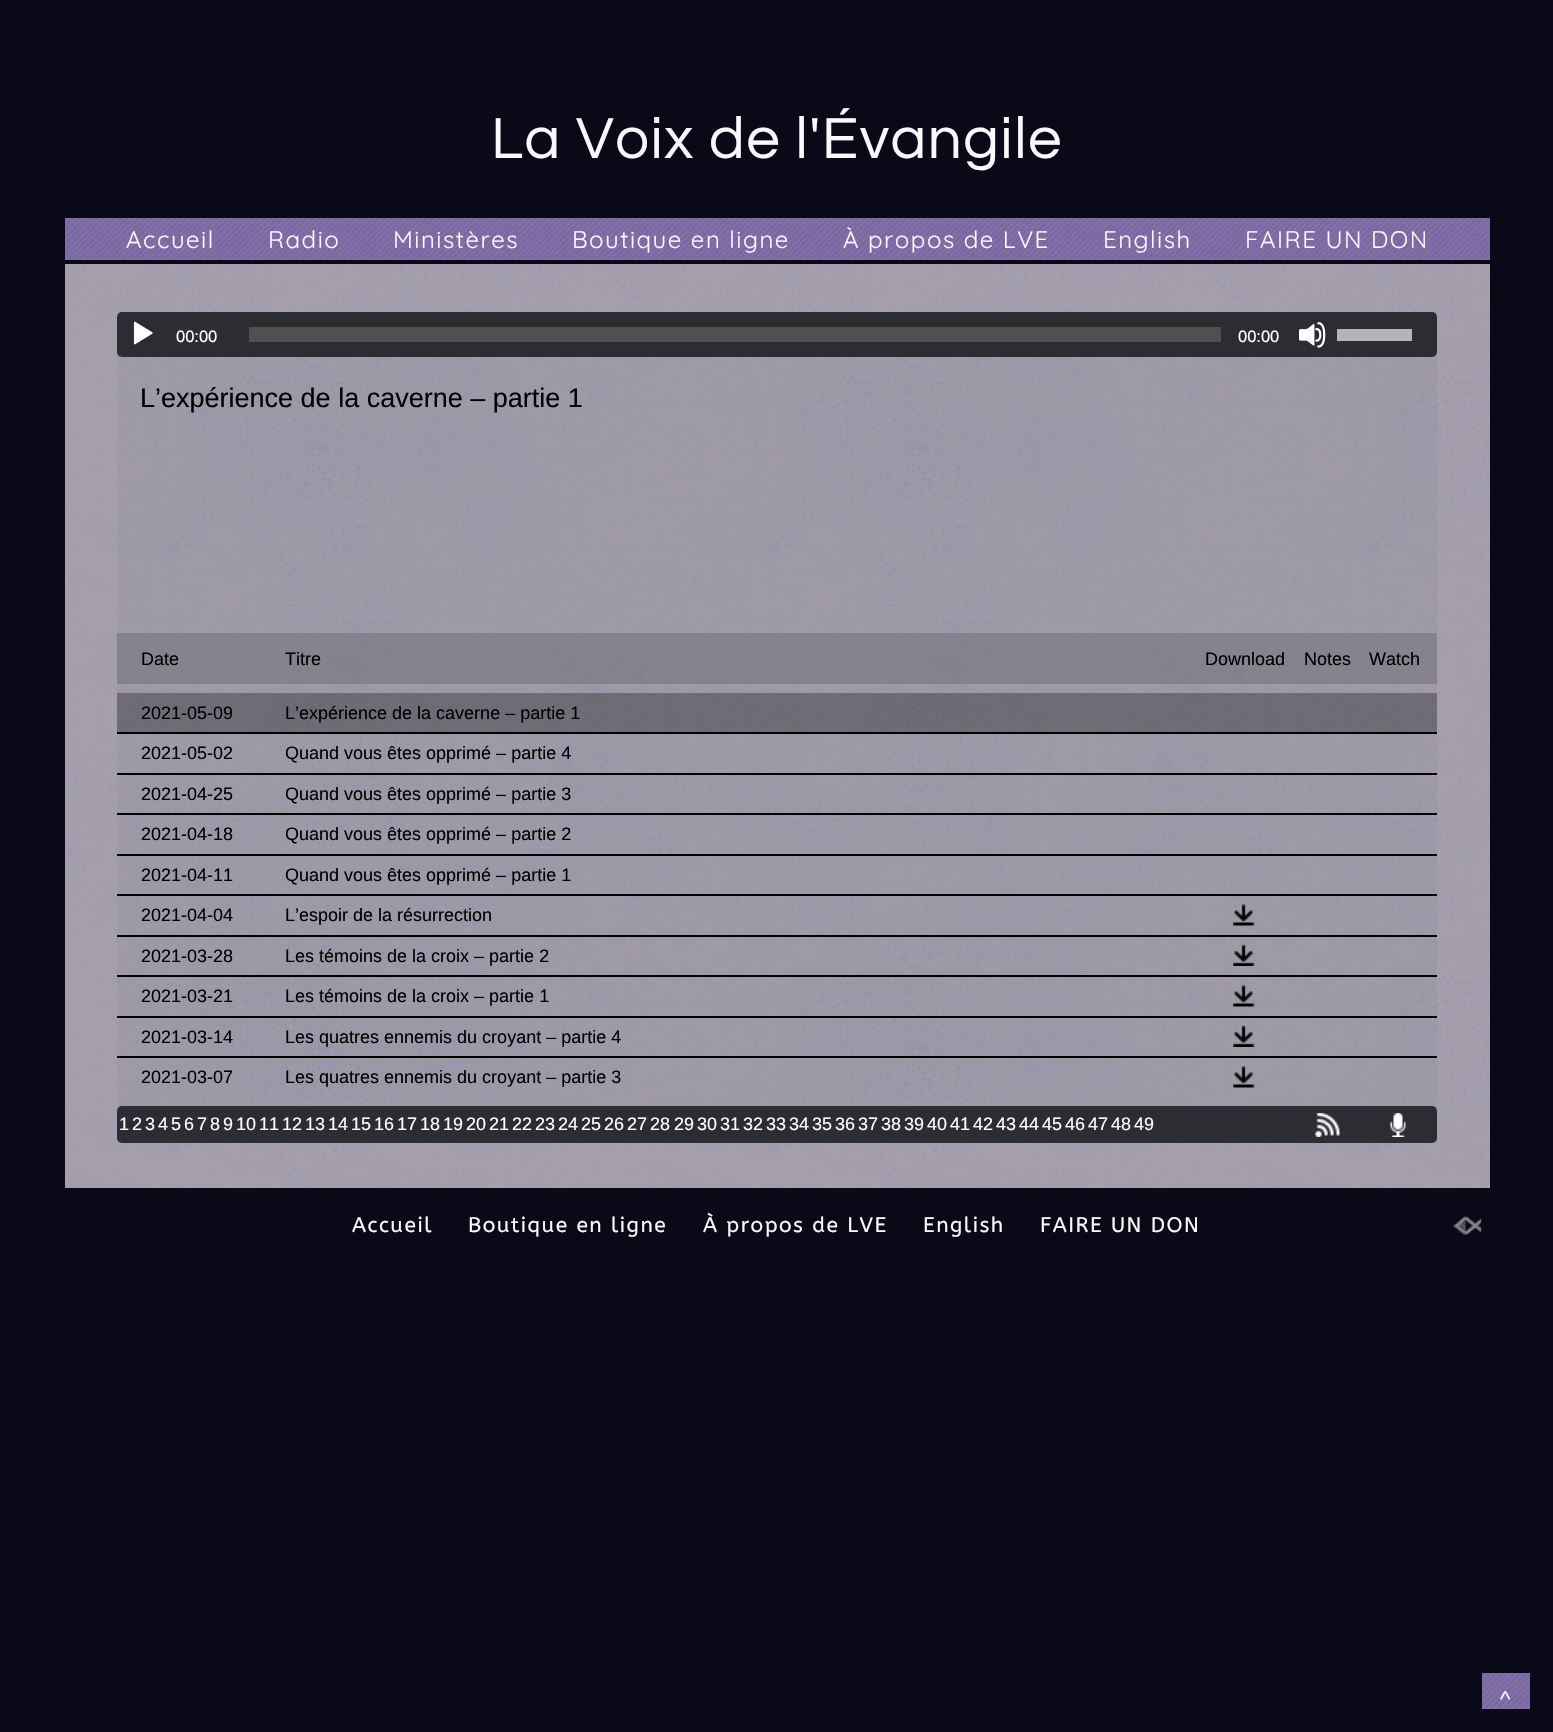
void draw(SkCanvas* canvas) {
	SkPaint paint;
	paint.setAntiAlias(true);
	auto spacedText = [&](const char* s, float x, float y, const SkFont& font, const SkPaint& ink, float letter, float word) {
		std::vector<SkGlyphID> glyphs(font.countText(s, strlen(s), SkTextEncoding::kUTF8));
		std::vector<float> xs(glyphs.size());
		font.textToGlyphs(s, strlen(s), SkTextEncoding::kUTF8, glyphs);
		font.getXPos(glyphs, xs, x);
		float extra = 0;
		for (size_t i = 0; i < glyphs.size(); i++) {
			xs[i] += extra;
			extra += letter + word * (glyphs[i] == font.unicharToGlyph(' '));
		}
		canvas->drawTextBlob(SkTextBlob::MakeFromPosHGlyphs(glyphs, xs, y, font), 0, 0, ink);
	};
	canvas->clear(0xff0a0917);
	SkFont f1(fontMgr->matchFamilyStyle("Questrial", SkFontStyle::Normal()), 60);
	f1.setSubpixel(true);
	paint.setColor(0xfffcf7fc);
	spacedText("La Voix de l'Évangile", 491, 158, f1, paint, 1.5, 0);
	paint.setColor(0xff8b79b8);
	canvas->drawRect(SkRect::MakeXYWH(65, 218, 1425, 42), paint);
	canvas->drawImageRect(SkImages::DeferredFromEncodedData(SkData::MakeFromFileName("img1.png")), SkRect::MakeXYWH(65, 218, 1425, 42), SkSamplingOptions());
	SkFont f2(fontMgr->matchFamilyStyle("Quicksand", SkFontStyle::Normal()), 24);
	f2.setSubpixel(true);
	paint.setColor(0xfffcf7fc);
	spacedText("Accueil", 126, 248, f2, paint, 1.5, 0);
	spacedText("Radio", 268, 248, f2, paint, 1.5, 0);
	spacedText("Ministères", 393, 248, f2, paint, 1.5, 0);
	spacedText("Boutique en ligne", 572, 248, f2, paint, 1.5, 0);
	spacedText("À propos de LVE", 843, 248, f2, paint, 1.5, 0);
	spacedText("English", 1103, 248, f2, paint, 1.5, 0);
	spacedText("FAIRE UN DON", 1245, 248, f2, paint, 1.5, 0);
	paint.setColor(0xffa89eaa);
	canvas->drawRect(SkRect::MakeXYWH(65, 264, 1425, 924), paint);
	canvas->drawImageRect(SkImages::DeferredFromEncodedData(SkData::MakeFromFileName("img2.png")), SkRect::MakeXYWH(64, 264, 1426, 924), SkSamplingOptions());
	paint.setColor(0x0a071a30);
	canvas->drawRect(SkRect::MakeXYWH(117, 312, 1320, 831), paint);
	paint.setColor(0xff2c2d33);
	canvas->drawRoundRect(SkRect::MakeXYWH(117, 312, 1320, 45), 5, 5, paint);
	canvas->drawImageRect(SkImages::DeferredFromEncodedData(SkData::MakeFromFileName("img3.png")), SkRect::MakeXYWH(133, 321, 20, 24), SkSamplingOptions());
	SkFont f3(fontMgr->matchFamilyStyle("Liberation Sans", SkFontStyle::Normal()), 16.5);
	f3.setSubpixel(true);
	paint.setColor(0xffffffff);
	canvas->drawString("00:00", 176, 342, f3, paint);
	paint.setColor(0xff505050);
	canvas->drawRect(SkRect::MakeXYWH(249, 327, 972, 15), paint);
	paint.setColor(0xffffffff);
	canvas->drawString("00:00", 1238, 342, f3, paint);
	canvas->drawImageRect(SkImages::DeferredFromEncodedData(SkData::MakeFromFileName("img4.png")), SkRect::MakeXYWH(1299, 322, 27, 26), SkSamplingOptions());
	paint.setColor(0xffb4b4b4);
	canvas->drawRect(SkRect::MakeXYWH(1337, 329, 75, 12), paint);
	SkFont f4(fontMgr->matchFamilyStyle("Liberation Sans", SkFontStyle::Normal()), 27);
	f4.setSubpixel(true);
	paint.setColor(0xff000000);
	canvas->drawString("L’expérience de la caverne – partie 1", 140, 407, f4, paint);
	paint.setColor(0x26000000);
	canvas->drawRect(SkRect::MakeXYWH(117, 633, 1320, 51), paint);
	SkFont f5(fontMgr->matchFamilyStyle("Liberation Sans", SkFontStyle::Normal()), 18);
	f5.setSubpixel(true);
	paint.setColor(0xff000000);
	canvas->drawString("Date", 141, 665, f5, paint);
	canvas->drawString("Titre", 285, 665, f5, paint);
	canvas->drawString("Download", 1205, 665, f5, paint);
	canvas->drawString("Notes", 1304, 665, f5, paint);
	canvas->drawString("Watch", 1369, 665, f5, paint);
	paint.setColor(0x4d000000);
	canvas->drawRect(SkRect::MakeXYWH(117, 693, 1320, 39), paint);
	paint.setColor(0xff000000);
	canvas->drawString("2021-05-09", 141, 719, f5, paint);
	canvas->drawString("L’expérience de la caverne – partie 1", 285, 719, f5, paint);
	canvas->drawRect(SkRect::MakeXYWH(117, 732, 1320, 2), paint);
	canvas->drawString("2021-05-02", 141, 759, f5, paint);
	canvas->drawString("Quand vous êtes opprimé – partie 4", 285, 759, f5, paint);
	canvas->drawRect(SkRect::MakeXYWH(117, 773, 1320, 2), paint);
	canvas->drawString("2021-04-25", 141, 800, f5, paint);
	canvas->drawString("Quand vous êtes opprimé – partie 3", 285, 800, f5, paint);
	canvas->drawRect(SkRect::MakeXYWH(117, 813, 1320, 2), paint);
	canvas->drawString("2021-04-18", 141, 840, f5, paint);
	canvas->drawString("Quand vous êtes opprimé – partie 2", 285, 840, f5, paint);
	canvas->drawRect(SkRect::MakeXYWH(117, 854, 1320, 2), paint);
	canvas->drawString("2021-04-11", 141, 881, f5, paint);
	canvas->drawString("Quand vous êtes opprimé – partie 1", 285, 881, f5, paint);
	canvas->drawRect(SkRect::MakeXYWH(117, 894, 1320, 2), paint);
	canvas->drawString("2021-04-04", 141, 921, f5, paint);
	canvas->drawString("L’espoir de la résurrection", 285, 921, f5, paint);
	canvas->drawImageRect(SkImages::DeferredFromEncodedData(SkData::MakeFromFileName("img5.png")), SkRect::MakeXYWH(1233, 904, 22, 22), SkSamplingOptions());
	canvas->drawRect(SkRect::MakeXYWH(117, 935, 1320, 2), paint);
	canvas->drawString("2021-03-28", 141, 962, f5, paint);
	canvas->drawString("Les témoins de la croix – partie 2", 285, 962, f5, paint);
	canvas->drawImageRect(SkImages::DeferredFromEncodedData(SkData::MakeFromFileName("img6.png")), SkRect::MakeXYWH(1233, 944, 22, 22), SkSamplingOptions());
	canvas->drawRect(SkRect::MakeXYWH(117, 975, 1320, 2), paint);
	canvas->drawString("2021-03-21", 141, 1002, f5, paint);
	canvas->drawString("Les témoins de la croix – partie 1", 285, 1002, f5, paint);
	canvas->drawImageRect(SkImages::DeferredFromEncodedData(SkData::MakeFromFileName("img7.png")), SkRect::MakeXYWH(1233, 985, 22, 22), SkSamplingOptions());
	canvas->drawRect(SkRect::MakeXYWH(117, 1016, 1320, 2), paint);
	canvas->drawString("2021-03-14", 141, 1043, f5, paint);
	canvas->drawString("Les quatres ennemis du croyant – partie 4", 285, 1043, f5, paint);
	canvas->drawImageRect(SkImages::DeferredFromEncodedData(SkData::MakeFromFileName("img8.png")), SkRect::MakeXYWH(1233, 1025, 22, 22), SkSamplingOptions());
	canvas->drawRect(SkRect::MakeXYWH(117, 1056, 1320, 2), paint);
	canvas->drawString("2021-03-07", 141, 1083, f5, paint);
	canvas->drawString("Les quatres ennemis du croyant – partie 3", 285, 1083, f5, paint);
	canvas->drawImageRect(SkImages::DeferredFromEncodedData(SkData::MakeFromFileName("img9.png")), SkRect::MakeXYWH(1233, 1066, 22, 22), SkSamplingOptions());
	paint.setColor(0xff2c2d33);
	canvas->drawRoundRect(SkRect::MakeXYWH(117, 1106, 1320, 37), 5, 5, paint);
	paint.setColor(0xffffffff);
	canvas->drawString("1", 119, 1130, f5, paint);
	canvas->drawString("2", 132, 1130, f5, paint);
	canvas->drawString("3", 145, 1130, f5, paint);
	canvas->drawString("4", 158, 1130, f5, paint);
	canvas->drawString("5", 171, 1130, f5, paint);
	canvas->drawString("6", 184, 1130, f5, paint);
	canvas->drawString("7", 197, 1130, f5, paint);
	canvas->drawString("8", 210, 1130, f5, paint);
	canvas->drawString("9", 223, 1130, f5, paint);
	canvas->drawString("10", 236, 1130, f5, paint);
	canvas->drawString("11", 259, 1130, f5, paint);
	canvas->drawString("12", 282, 1130, f5, paint);
	canvas->drawString("13", 305, 1130, f5, paint);
	canvas->drawString("14", 328, 1130, f5, paint);
	canvas->drawString("15", 351, 1130, f5, paint);
	canvas->drawString("16", 374, 1130, f5, paint);
	canvas->drawString("17", 397, 1130, f5, paint);
	canvas->drawString("18", 420, 1130, f5, paint);
	canvas->drawString("19", 443, 1130, f5, paint);
	canvas->drawString("20", 466, 1130, f5, paint);
	canvas->drawString("21", 489, 1130, f5, paint);
	canvas->drawString("22", 512, 1130, f5, paint);
	canvas->drawString("23", 535, 1130, f5, paint);
	canvas->drawString("24", 558, 1130, f5, paint);
	canvas->drawString("25", 581, 1130, f5, paint);
	canvas->drawString("26", 604, 1130, f5, paint);
	canvas->drawString("27", 627, 1130, f5, paint);
	canvas->drawString("28", 650, 1130, f5, paint);
	canvas->drawString("29", 674, 1130, f5, paint);
	canvas->drawString("30", 697, 1130, f5, paint);
	canvas->drawString("31", 720, 1130, f5, paint);
	canvas->drawString("32", 743, 1130, f5, paint);
	canvas->drawString("33", 766, 1130, f5, paint);
	canvas->drawString("34", 789, 1130, f5, paint);
	canvas->drawString("35", 812, 1130, f5, paint);
	canvas->drawString("36", 835, 1130, f5, paint);
	canvas->drawString("37", 858, 1130, f5, paint);
	canvas->drawString("38", 881, 1130, f5, paint);
	canvas->drawString("39", 904, 1130, f5, paint);
	canvas->drawString("40", 927, 1130, f5, paint);
	canvas->drawString("41", 950, 1130, f5, paint);
	canvas->drawString("42", 973, 1130, f5, paint);
	canvas->drawString("43", 996, 1130, f5, paint);
	canvas->drawString("44", 1019, 1130, f5, paint);
	canvas->drawString("45", 1042, 1130, f5, paint);
	canvas->drawString("46", 1065, 1130, f5, paint);
	canvas->drawString("47", 1088, 1130, f5, paint);
	canvas->drawString("48", 1111, 1130, f5, paint);
	canvas->drawString("49", 1134, 1130, f5, paint);
	canvas->drawImageRect(SkImages::DeferredFromEncodedData(SkData::MakeFromFileName("img10.png")), SkRect::MakeXYWH(1315, 1113, 25, 24), SkSamplingOptions());
	canvas->drawImageRect(SkImages::DeferredFromEncodedData(SkData::MakeFromFileName("img11.png")), SkRect::MakeXYWH(1390, 1113, 16, 24), SkSamplingOptions());
	SkFont f6(fontMgr->matchFamilyStyle("ABeeZee", SkFontStyle::Normal()), 21);
	f6.setSubpixel(true);
	paint.setColor(0xfffcf7fc);
	spacedText("Accueil", 352, 1232, f6, paint, 1.5, 0);
	spacedText("Boutique en ligne", 468, 1232, f6, paint, 1.5, 0);
	spacedText("À propos de LVE", 703, 1232, f6, paint, 1.5, 0);
	spacedText("English", 923, 1232, f6, paint, 1.5, 0);
	spacedText("FAIRE UN DON", 1040, 1232, f6, paint, 1.5, 0);
	canvas->drawImageRect(SkImages::DeferredFromEncodedData(SkData::MakeFromFileName("img12.png")), SkRect::MakeXYWH(1453, 1216, 29, 19), SkSamplingOptions());
	paint.setColor(0xff8b79b8);
	canvas->drawRect(SkRect::MakeXYWH(1482, 1673, 48, 36), paint);
	canvas->drawImageRect(SkImages::DeferredFromEncodedData(SkData::MakeFromFileName("img13.png")), SkRect::MakeXYWH(1482, 1673, 48, 36), SkSamplingOptions());
	paint.setColor(0xfffcf7fc);
	spacedText("^", 1499, 1709, f2, paint, 1.5, 0);
}
